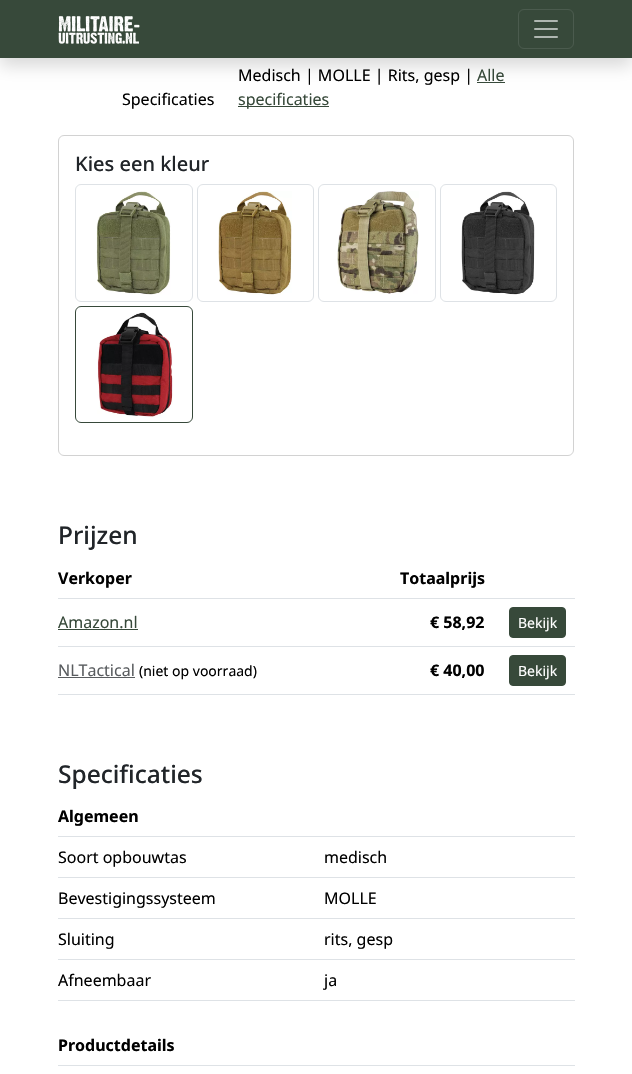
void draw(SkCanvas* canvas) {
	SkPaint paint;
	paint.setAntiAlias(true);
	canvas->clear(0xffffffff);
	paint.setColor(0xff37493a);
	canvas->drawRect(SkRect::MakeXYWH(477, 82, 28, 1), paint);
	paint.setColor(0x26000000);
	paint.setMaskFilter(SkMaskFilter::MakeBlur(kNormal_SkBlurStyle, 8));
	canvas->drawRect(SkRect::MakeXYWH(0, 8, 632, 58), paint);
	paint.setMaskFilter(nullptr);
	paint.setColor(0xff37493a);
	canvas->drawRect(SkRect::MakeXYWH(0, 0, 632, 58), paint);
	canvas->drawImageRect(SkImages::DeferredFromEncodedData(SkData::MakeFromFileName("img1.png")), SkRect::MakeXYWH(58, 16, 82, 28), SkSamplingOptions());
	paint.setStroke(true);
	paint.setStrokeWidth(1);
	paint.setColor(0xff4b5b4e);
	canvas->drawRoundRect(SkRect::MakeXYWH(518.5, 9.5, 55, 39), 5.5, 5.5, paint);
	canvas->drawImageRect(SkImages::DeferredFromEncodedData(SkData::MakeFromFileName("img2.png")), SkRect::MakeXYWH(534, 20, 24, 18), SkSamplingOptions());
	SkFont f1(fontMgr->matchFamilyStyle("Noto Sans", SkFontStyle::Normal()), 16);
	f1.setSubpixel(true);
	paint.setStroke(false);
	paint.setColor(0xff000000);
	canvas->drawString("Specificaties", 122, 105, f1, paint);
	canvas->drawString("Medisch | MOLLE | Rits, gesp |", 238, 81, f1, paint);
	paint.setColor(0xff37493a);
	canvas->drawString("Alle", 477, 81, f1, paint);
	canvas->drawRect(SkRect::MakeXYWH(238, 106, 91, 1), paint);
	canvas->drawString("specificaties", 238, 105, f1, paint);
	paint.setStroke(true);
	paint.setColor(0xffd2d2d2);
	canvas->drawRoundRect(SkRect::MakeXYWH(58.5, 135.5, 515, 320), 5.5, 5.5, paint);
	SkFont f2(fontMgr->matchFamilyStyle("Noto Sans", SkFontStyle(500, SkFontStyle::kNormal_Width, SkFontStyle::kUpright_Slant)), 20);
	f2.setSubpixel(true);
	paint.setStroke(false);
	paint.setColor(0xff212529);
	canvas->drawString("Kies een kleur", 75, 171, f2, paint);
	paint.setStroke(true);
	paint.setColor(0xffdee2e6);
	canvas->drawRoundRect(SkRect::MakeXYWH(75.5, 184.5, 117, 117), 5.5, 5.5, paint);
	canvas->drawImageRect(SkImages::DeferredFromEncodedData(SkData::MakeFromFileName("img3.png")), SkRect::MakeXYWH(96, 191, 75, 104), SkSamplingOptions());
	canvas->drawRoundRect(SkRect::MakeXYWH(197.5, 184.5, 116, 117), 5.5, 5.5, paint);
	canvas->drawImageRect(SkImages::DeferredFromEncodedData(SkData::MakeFromFileName("img4.png")), SkRect::MakeXYWH(218, 191, 74, 104), SkSamplingOptions());
	canvas->drawRoundRect(SkRect::MakeXYWH(318.5, 184.5, 117, 117), 5.5, 5.5, paint);
	canvas->drawImageRect(SkImages::DeferredFromEncodedData(SkData::MakeFromFileName("img5.png")), SkRect::MakeXYWH(337, 191, 82, 103), SkSamplingOptions());
	canvas->drawRoundRect(SkRect::MakeXYWH(440.5, 184.5, 116, 117), 5.5, 5.5, paint);
	canvas->drawImageRect(SkImages::DeferredFromEncodedData(SkData::MakeFromFileName("img6.png")), SkRect::MakeXYWH(461, 191, 74, 104), SkSamplingOptions());
	paint.setColor(0xff37493a);
	canvas->drawRoundRect(SkRect::MakeXYWH(75.5, 306.5, 117, 116), 5.5, 5.5, paint);
	canvas->drawImageRect(SkImages::DeferredFromEncodedData(SkData::MakeFromFileName("img7.png")), SkRect::MakeXYWH(97, 312, 76, 106), SkSamplingOptions());
	SkFont f3(fontMgr->matchFamilyStyle("Noto Sans", SkFontStyle(500, SkFontStyle::kNormal_Width, SkFontStyle::kUpright_Slant)), 24.5);
	f3.setSubpixel(true);
	paint.setStroke(false);
	paint.setColor(0xff212529);
	canvas->drawString("Prijzen", 58, 544, f3, paint);
	SkFont f4(fontMgr->matchFamilyStyle("Noto Sans", SkFontStyle::Bold()), 16);
	f4.setSubpixel(true);
	paint.setColor(0xff000000);
	canvas->drawString("Verkoper", 58, 584, f4, paint);
	canvas->drawString("Totaalprijs", 400, 584, f4, paint);
	paint.setColor(0xffdee2e6);
	canvas->drawRect(SkRect::MakeXYWH(58, 598, 517, 1), paint);
	paint.setColor(0xff37493a);
	canvas->drawString("Amazon.nl", 58, 628, f1, paint);
	canvas->drawRect(SkRect::MakeXYWH(58, 629, 80, 1), paint);
	paint.setColor(0xff000000);
	canvas->drawString("€ 58,92", 430, 628, f4, paint);
	paint.setColor(0xffdee2e6);
	canvas->drawRect(SkRect::MakeXYWH(58, 646, 517, 1), paint);
	paint.setColor(0xff37493a);
	canvas->drawRoundRect(SkRect::MakeXYWH(509.5, 607.5, 56, 30), 3.5, 3.5, paint);
	paint.setStroke(true);
	canvas->drawRoundRect(SkRect::MakeXYWH(509.5, 607.5, 56, 30), 3.5, 3.5, paint);
	SkFont f5(fontMgr->matchFamilyStyle("Noto Sans", SkFontStyle::Normal()), 14);
	f5.setSubpixel(true);
	paint.setStroke(false);
	paint.setColor(0xffffffff);
	canvas->drawString("Bekijk", 518, 628, f5, paint);
	paint.setColor(0xff595c5f);
	canvas->drawString("NLTactical", 58, 676, f1, paint);
	canvas->drawRect(SkRect::MakeXYWH(58, 677, 77, 1), paint);
	paint.setColor(0xff000000);
	canvas->drawString("(niet op voorraad)", 139, 676, f5, paint);
	canvas->drawString("€ 40,00", 430, 676, f4, paint);
	paint.setColor(0xffdee2e6);
	canvas->drawRect(SkRect::MakeXYWH(58, 694, 517, 1), paint);
	paint.setColor(0xff37493a);
	canvas->drawRoundRect(SkRect::MakeXYWH(509.5, 655.5, 56, 30), 3.5, 3.5, paint);
	paint.setStroke(true);
	canvas->drawRoundRect(SkRect::MakeXYWH(509.5, 655.5, 56, 30), 3.5, 3.5, paint);
	paint.setStroke(false);
	paint.setColor(0xffffffff);
	canvas->drawString("Bekijk", 518, 676, f5, paint);
	paint.setColor(0xff212529);
	canvas->drawString("Specificaties", 58, 783, f3, paint);
	paint.setColor(0xffdee2e6);
	canvas->drawRect(SkRect::MakeXYWH(58, 836, 517, 1), paint);
	paint.setColor(0xff000000);
	canvas->drawString("Algemeen", 58, 822, f4, paint);
	canvas->drawString("Soort opbouwtas", 58, 863, f1, paint);
	paint.setColor(0xffdee2e6);
	canvas->drawRect(SkRect::MakeXYWH(58, 877, 517, 1), paint);
	paint.setColor(0xff000000);
	canvas->drawString("medisch", 324, 863, f1, paint);
	canvas->drawString("Bevestigingssysteem", 58, 904, f1, paint);
	paint.setColor(0xffdee2e6);
	canvas->drawRect(SkRect::MakeXYWH(58, 918, 517, 1), paint);
	paint.setColor(0xff000000);
	canvas->drawString("MOLLE", 324, 904, f1, paint);
	canvas->drawString("Sluiting", 58, 945, f1, paint);
	paint.setColor(0xffdee2e6);
	canvas->drawRect(SkRect::MakeXYWH(58, 959, 517, 1), paint);
	paint.setColor(0xff000000);
	canvas->drawString("rits, gesp", 324, 945, f1, paint);
	canvas->drawString("Afneembaar", 58, 986, f1, paint);
	paint.setColor(0xffdee2e6);
	canvas->drawRect(SkRect::MakeXYWH(58, 1000, 517, 1), paint);
	paint.setColor(0xff000000);
	canvas->drawString("ja", 324, 986, f1, paint);
	paint.setColor(0xffdee2e6);
	canvas->drawRect(SkRect::MakeXYWH(58, 1065, 517, 1), paint);
	paint.setColor(0xff000000);
	canvas->drawString("Productdetails", 58, 1051, f4, paint);
}
